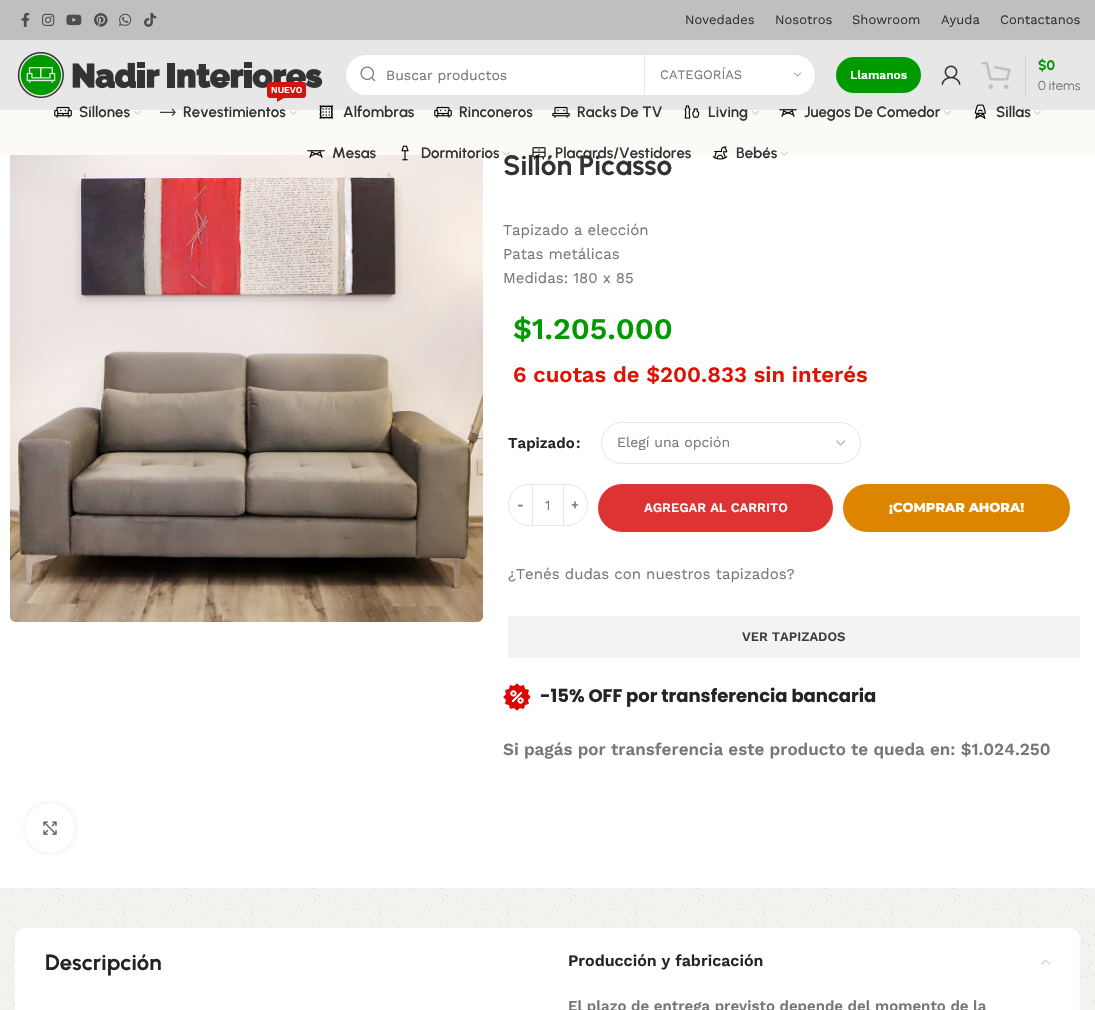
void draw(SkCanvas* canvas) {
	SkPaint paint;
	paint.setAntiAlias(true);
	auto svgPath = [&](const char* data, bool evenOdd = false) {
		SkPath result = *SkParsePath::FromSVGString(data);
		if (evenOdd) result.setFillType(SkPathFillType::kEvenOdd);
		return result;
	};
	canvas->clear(0xffffffff);
	paint.setColor(0xffbfbfbf);
	canvas->drawRect(SkRect::MakeXYWH(0, 0, 1095, 40), paint);
	canvas->drawImageRect(SkImages::DeferredFromEncodedData(SkData::MakeFromFileName("img1.png")), SkRect::MakeXYWH(21, 12, 9, 15), SkSamplingOptions());
	canvas->drawImageRect(SkImages::DeferredFromEncodedData(SkData::MakeFromFileName("img2.png")), SkRect::MakeXYWH(42, 13, 13, 13), SkSamplingOptions());
	canvas->drawImageRect(SkImages::DeferredFromEncodedData(SkData::MakeFromFileName("img3.png")), SkRect::MakeXYWH(66, 14, 16, 12), SkSamplingOptions());
	canvas->drawImageRect(SkImages::DeferredFromEncodedData(SkData::MakeFromFileName("img4.png")), SkRect::MakeXYWH(94, 13, 14, 14), SkSamplingOptions());
	canvas->drawImageRect(SkImages::DeferredFromEncodedData(SkData::MakeFromFileName("img5.png")), SkRect::MakeXYWH(119, 13, 13, 13), SkSamplingOptions());
	canvas->drawImageRect(SkImages::DeferredFromEncodedData(SkData::MakeFromFileName("img6.png")), SkRect::MakeXYWH(144, 12, 13, 15), SkSamplingOptions());
	SkFont f1(fontMgr->matchFamilyStyle("Work Sans", SkFontStyle::Normal()), 13);
	f1.setSubpixel(true);
	paint.setColor(0xff333333);
	canvas->drawString("Novedades", 685, 24, f1, paint);
	canvas->drawString("Nosotros", 775, 24, f1, paint);
	canvas->drawString("Showroom", 852, 24, f1, paint);
	canvas->drawString("Ayuda", 941, 24, f1, paint);
	canvas->drawString("Contactanos", 1000, 24, f1, paint);
	paint.setColor(0xffe7e7e7);
	canvas->drawRect(SkRect::MakeXYWH(0, 40, 1095, 70), paint);
	canvas->drawImageRect(SkImages::DeferredFromEncodedData(SkData::MakeFromFileName("img7.png")), SkRect::MakeXYWH(17, 52, 306, 46), SkSamplingOptions());
	paint.setColor(0xffffffff);
	canvas->drawRoundRect(SkRect::MakeXYWH(345, 54, 471, 42), 21, 21, paint);
	paint.setStroke(true);
	paint.setStrokeWidth(1);
	paint.setColor(0x1a000000);
	canvas->drawRoundRect(SkRect::MakeXYWH(345.5, 54.5, 470, 41), 20.5, 20.5, paint);
	canvas->drawImageRect(SkImages::DeferredFromEncodedData(SkData::MakeFromFileName("img8.png")), SkRect::MakeXYWH(360, 66, 16, 16), SkSamplingOptions());
	SkFont f2(fontMgr->matchFamilyStyle("Work Sans", SkFontStyle::Normal()), 14);
	f2.setSubpixel(true);
	paint.setStroke(false);
	paint.setColor(0xff777777);
	canvas->drawString("Buscar productos", 386, 80, f2, paint);
	paint.setColor(0xffe6e6e6);
	canvas->drawRect(SkRect::MakeXYWH(644, 55, 1, 40), paint);
	paint.setColor(0xff777777);
	canvas->drawString("CATEGORÍAS", 660, 79, f1, paint);
	canvas->drawImageRect(SkImages::DeferredFromEncodedData(SkData::MakeFromFileName("img9.png")), SkRect::MakeXYWH(794, 72, 8, 5), SkSamplingOptions());
	paint.setColor(0xff009900);
	canvas->drawRoundRect(SkRect::MakeXYWH(836, 57, 85, 36), 18, 18, paint);
	SkFont f3(fontMgr->matchFamilyStyle("Work Sans", SkFontStyle(600, SkFontStyle::kNormal_Width, SkFontStyle::kUpright_Slant)), 12);
	f3.setSubpixel(true);
	paint.setColor(0xffffffff);
	canvas->drawString("Llamanos", 850, 79, f3, paint);
	canvas->drawImageRect(SkImages::DeferredFromEncodedData(SkData::MakeFromFileName("img10.png")), SkRect::MakeXYWH(941, 65, 20, 20), SkSamplingOptions());
	canvas->drawImageRect(SkImages::DeferredFromEncodedData(SkData::MakeFromFileName("img11.png")), SkRect::MakeXYWH(981, 62, 30, 27), SkSamplingOptions());
	paint.setColor(0xffd0d0d0);
	canvas->drawRect(SkRect::MakeXYWH(1025, 55, 1, 41), paint);
	SkFont f4(fontMgr->matchFamilyStyle("Urbanist", SkFontStyle(800, SkFontStyle::kNormal_Width, SkFontStyle::kUpright_Slant)), 14);
	f4.setSubpixel(true);
	paint.setColor(0xff009900);
	canvas->drawString("$0", 1038, 70, f4, paint);
	SkFont f5(fontMgr->matchFamilyStyle("Urbanist", SkFontStyle::Normal()), 13);
	f5.setSubpixel(true);
	paint.setColor(0xff777777);
	canvas->drawString("0 items", 1038, 90, f5, paint);
	SkFont f6(fontMgr->matchFamilyStyle("Urbanist", SkFontStyle::Bold()), 28);
	f6.setSubpixel(true);
	paint.setColor(0xff333333);
	canvas->drawString("Sillón Picasso", 503, 175, f6, paint);
	paint.setColor(0xfffbfaf7);
	canvas->drawRect(SkRect::MakeXYWH(0, 110, 1095, 45), paint);
	canvas->drawImageRect(SkImages::DeferredFromEncodedData(SkData::MakeFromFileName("img12.png")), SkRect::MakeXYWH(54, 106, 18, 12), SkSamplingOptions());
	SkFont f7(fontMgr->matchFamilyStyle("Urbanist", SkFontStyle(600, SkFontStyle::kNormal_Width, SkFontStyle::kUpright_Slant)), 15);
	f7.setSubpixel(true);
	paint.setColor(0xff333333);
	canvas->drawString("Sillones", 79, 117, f7, paint);
	canvas->drawImageRect(SkImages::DeferredFromEncodedData(SkData::MakeFromFileName("img13.png")), SkRect::MakeXYWH(134, 111, 7, 4), SkSamplingOptions());
	paint.setColor(0xffd41212);
	canvas->drawRoundRect(SkRect::MakeXYWH(267, 82, 39, 16), 3, 3, paint);
	SkFont f8(fontMgr->matchFamilyStyle("Work Sans", SkFontStyle(600, SkFontStyle::kNormal_Width, SkFontStyle::kUpright_Slant)), 9);
	f8.setSubpixel(true);
	paint.setColor(0xffffffff);
	canvas->drawString("NUEVO", 271, 93, f8, paint);
	paint.setColor(0xffd41212);
	canvas->drawPath(svgPath("M277 98H284L277 102Z"), paint);
	canvas->drawImageRect(SkImages::DeferredFromEncodedData(SkData::MakeFromFileName("img14.png")), SkRect::MakeXYWH(160, 108, 16, 8), SkSamplingOptions());
	paint.setColor(0xff333333);
	canvas->drawString("Revestimientos", 183, 117, f7, paint);
	canvas->drawImageRect(SkImages::DeferredFromEncodedData(SkData::MakeFromFileName("img13.png")), SkRect::MakeXYWH(290, 111, 7, 4), SkSamplingOptions());
	canvas->drawImageRect(SkImages::DeferredFromEncodedData(SkData::MakeFromFileName("img15.png")), SkRect::MakeXYWH(319, 105, 14, 14), SkSamplingOptions());
	canvas->drawString("Alfombras", 343, 117, f7, paint);
	canvas->drawImageRect(SkImages::DeferredFromEncodedData(SkData::MakeFromFileName("img12.png")), SkRect::MakeXYWH(434, 106, 18, 12), SkSamplingOptions());
	canvas->drawString("Rinconeros", 459, 117, f7, paint);
	canvas->drawImageRect(SkImages::DeferredFromEncodedData(SkData::MakeFromFileName("img16.png")), SkRect::MakeXYWH(552, 106, 18, 12), SkSamplingOptions());
	canvas->drawString("Racks De TV", 577, 117, f7, paint);
	canvas->drawImageRect(SkImages::DeferredFromEncodedData(SkData::MakeFromFileName("img17.png")), SkRect::MakeXYWH(684, 105, 16, 14), SkSamplingOptions());
	canvas->drawString("Living", 708, 117, f7, paint);
	canvas->drawImageRect(SkImages::DeferredFromEncodedData(SkData::MakeFromFileName("img13.png")), SkRect::MakeXYWH(752, 111, 7, 4), SkSamplingOptions());
	canvas->drawImageRect(SkImages::DeferredFromEncodedData(SkData::MakeFromFileName("img18.png")), SkRect::MakeXYWH(779, 109, 18, 8), SkSamplingOptions());
	canvas->drawString("Juegos De Comedor", 804, 117, f7, paint);
	canvas->drawImageRect(SkImages::DeferredFromEncodedData(SkData::MakeFromFileName("img13.png")), SkRect::MakeXYWH(944, 111, 7, 4), SkSamplingOptions());
	canvas->drawImageRect(SkImages::DeferredFromEncodedData(SkData::MakeFromFileName("img19.png")), SkRect::MakeXYWH(974, 104, 12, 16), SkSamplingOptions());
	canvas->drawString("Sillas", 996, 117, f7, paint);
	canvas->drawImageRect(SkImages::DeferredFromEncodedData(SkData::MakeFromFileName("img13.png")), SkRect::MakeXYWH(1034, 111, 7, 4), SkSamplingOptions());
	canvas->drawImageRect(SkImages::DeferredFromEncodedData(SkData::MakeFromFileName("img27.png")), SkRect::MakeXYWH(10, 155, 473, 467), SkSamplingOptions());
	canvas->drawImageRect(SkImages::DeferredFromEncodedData(SkData::MakeFromFileName("img20.png")), SkRect::MakeXYWH(307, 150, 18, 8), SkSamplingOptions());
	canvas->drawString("Mesas", 332, 158, f7, paint);
	canvas->drawImageRect(SkImages::DeferredFromEncodedData(SkData::MakeFromFileName("img21.png")), SkRect::MakeXYWH(401, 145, 8, 16), SkSamplingOptions());
	canvas->drawString("Dormitorios", 421, 158, f7, paint);
	canvas->drawImageRect(SkImages::DeferredFromEncodedData(SkData::MakeFromFileName("img22.png")), SkRect::MakeXYWH(503, 152, 7, 4), SkSamplingOptions());
	canvas->drawImageRect(SkImages::DeferredFromEncodedData(SkData::MakeFromFileName("img23.png")), SkRect::MakeXYWH(532, 147, 14, 13), SkSamplingOptions());
	canvas->drawString("Placards/Vestidores", 555, 158, f7, paint);
	canvas->drawImageRect(SkImages::DeferredFromEncodedData(SkData::MakeFromFileName("img24.png")), SkRect::MakeXYWH(712, 146, 16, 14), SkSamplingOptions());
	canvas->drawString("Bebés", 736, 158, f7, paint);
	canvas->drawImageRect(SkImages::DeferredFromEncodedData(SkData::MakeFromFileName("img25.png")), SkRect::MakeXYWH(781, 152, 7, 4), SkSamplingOptions());
	canvas->drawImageRect(SkImages::DeferredFromEncodedData(SkData::MakeFromFileName("img26.png")), SkRect::MakeXYWH(0, 888, 1095, 122), SkSamplingOptions());
	paint.setColor(0x14000000);
	paint.setMaskFilter(SkMaskFilter::MakeBlur(kNormal_SkBlurStyle, 2.5));
	canvas->drawRoundRect(SkRect::MakeXYWH(25, 803, 50, 50), 25, 25, paint);
	paint.setMaskFilter(nullptr);
	paint.setColor(0xffffffff);
	canvas->drawCircle(50, 828, 25, paint);
	canvas->drawImageRect(SkImages::DeferredFromEncodedData(SkData::MakeFromFileName("img28.png")), SkRect::MakeXYWH(43, 821, 14, 14), SkSamplingOptions());
	SkFont f9(fontMgr->matchFamilyStyle("Work Sans", SkFontStyle::Normal()), 15);
	f9.setSubpixel(true);
	paint.setColor(0xff777777);
	canvas->drawString("Tapizado a elección", 503, 235, f9, paint);
	canvas->drawString("Patas metálicas", 503, 259, f9, paint);
	canvas->drawString("Medidas: 180 x 85", 503, 283, f9, paint);
	SkFont f10(fontMgr->matchFamilyStyle("Work Sans", SkFontStyle(600, SkFontStyle::kNormal_Width, SkFontStyle::kUpright_Slant)), 30);
	f10.setSubpixel(true);
	paint.setColor(0xff009900);
	canvas->drawString("$1.205.000", 513, 339, f10, paint);
	SkFont f11(fontMgr->matchFamilyStyle("Work Sans", SkFontStyle(600, SkFontStyle::kNormal_Width, SkFontStyle::kUpright_Slant)), 22);
	f11.setSubpixel(true);
	paint.setColor(0xffdf1304);
	canvas->drawString("6 cuotas de $200.833 sin interés", 513, 382, f11, paint);
	SkFont f12(fontMgr->matchFamilyStyle("Work Sans", SkFontStyle(600, SkFontStyle::kNormal_Width, SkFontStyle::kUpright_Slant)), 15);
	f12.setSubpixel(true);
	paint.setColor(0xff242424);
	canvas->drawString("Tapizado", 508, 448, f12, paint);
	canvas->drawString(":", 576, 448, f12, paint);
	paint.setStroke(true);
	paint.setStrokeWidth(1.4);
	paint.setColor(0xffbbbbbb);
	canvas->drawPath(svgPath("M836.5 440.5L840.5 445L845 440.5"), paint);
	paint.setStrokeWidth(1);
	paint.setColor(0xffe6e6e6);
	canvas->drawRoundRect(SkRect::MakeXYWH(601.5, 422.5, 259, 41), 20.5, 20.5, paint);
	paint.setStroke(false);
	paint.setColor(0xff777777);
	canvas->drawString("Elegí una opción", 617, 447, f2, paint);
	paint.setStroke(true);
	paint.setColor(0xffe6e6e6);
	canvas->drawPath(svgPath("M529 484.5H532.5V525.5H529C517.5 525.5 508.5 516.5 508.5 505C508.5 493.5 517.5 484.5 529 484.5Z"), paint);
	SkFont f13(fontMgr->matchFamilyStyle("Work Sans", SkFontStyle(600, SkFontStyle::kNormal_Width, SkFontStyle::kUpright_Slant)), 13);
	f13.setSubpixel(true);
	paint.setStroke(false);
	paint.setColor(0xff777777);
	canvas->drawString("-", 517, 509, f13, paint);
	paint.setColor(0xffe6e6e6);
	canvas->drawRect(SkRect::MakeXYWH(533, 484, 30, 1), paint);
	canvas->drawRect(SkRect::MakeXYWH(533, 525, 30, 1), paint);
	paint.setColor(0xff777777);
	canvas->drawString("1", 545, 510, f2, paint);
	paint.setStroke(true);
	paint.setColor(0xffe6e6e6);
	canvas->drawPath(svgPath("M563.5 484.5H567C578.5 484.5 587.5 493.5 587.5 505C587.5 516.5 578.5 525.5 567 525.5H563.5Z"), paint);
	paint.setStroke(false);
	paint.setColor(0xff777777);
	canvas->drawString("+", 571, 509, f13, paint);
	paint.setColor(0xffdd3333);
	canvas->drawRoundRect(SkRect::MakeXYWH(598, 484, 235, 48), 24, 24, paint);
	paint.setColor(0xffffffff);
	canvas->drawString("AGREGAR AL CARRITO", 644, 512, f13, paint);
	paint.setColor(0xffdd8500);
	canvas->drawRoundRect(SkRect::MakeXYWH(843, 484, 227, 48), 24, 24, paint);
	SkFont f14(fontMgr->matchFamilyStyle("Montserrat", SkFontStyle(800, SkFontStyle::kNormal_Width, SkFontStyle::kUpright_Slant)), 13);
	f14.setSubpixel(true);
	paint.setColor(0xffffffff);
	canvas->drawString("¡COMPRAR AHORA!", 889, 512, f14, paint);
	paint.setColor(0xff777777);
	canvas->drawString("¿Tenés dudas con nuestros tapizados?", 508, 579, f9, paint);
	paint.setColor(0xfff3f3f3);
	canvas->drawRect(SkRect::MakeXYWH(508, 616, 572, 42), paint);
	paint.setColor(0xff3e3e3e);
	canvas->drawString("VER TAPIZADOS", 742, 641, f13, paint);
	canvas->drawImageRect(SkImages::DeferredFromEncodedData(SkData::MakeFromFileName("img29.png")), SkRect::MakeXYWH(503, 683, 28, 28), SkSamplingOptions());
	SkFont f15(fontMgr->matchFamilyStyle("Poppins", SkFontStyle::Bold()), 18);
	f15.setSubpixel(true);
	paint.setColor(0xff242424);
	canvas->drawString("-15% OFF por transferencia bancaria", 540, 702, f15, paint);
	SkFont f16(fontMgr->matchFamilyStyle("Work Sans", SkFontStyle(600, SkFontStyle::kNormal_Width, SkFontStyle::kUpright_Slant)), 17);
	f16.setSubpixel(true);
	paint.setColor(0xff777777);
	canvas->drawString("Si pagás por transferencia este producto te queda en: $1.024.250", 503, 755, f16, paint);
	paint.setColor(0xffffffff);
	canvas->drawRoundRect(SkRect::MakeXYWH(15, 928, 1065, 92), 10, 10, paint);
	SkFont f17(fontMgr->matchFamilyStyle("Urbanist", SkFontStyle::Bold()), 22);
	f17.setSubpixel(true);
	paint.setColor(0xff242424);
	canvas->drawString("Descripción", 45, 970, f17, paint);
	SkFont f18(fontMgr->matchFamilyStyle("Work Sans", SkFontStyle(600, SkFontStyle::kNormal_Width, SkFontStyle::kUpright_Slant)), 16);
	f18.setSubpixel(true);
	canvas->drawString("Producción y fabricación", 568, 966, f18, paint);
	canvas->drawImageRect(SkImages::DeferredFromEncodedData(SkData::MakeFromFileName("img30.png")), SkRect::MakeXYWH(1041, 959, 9, 6), SkSamplingOptions());
	paint.setColor(0xff777777);
	canvas->drawString("El plazo de entrega previsto depende del momento de la", 568, 1011, f12, paint);
}
